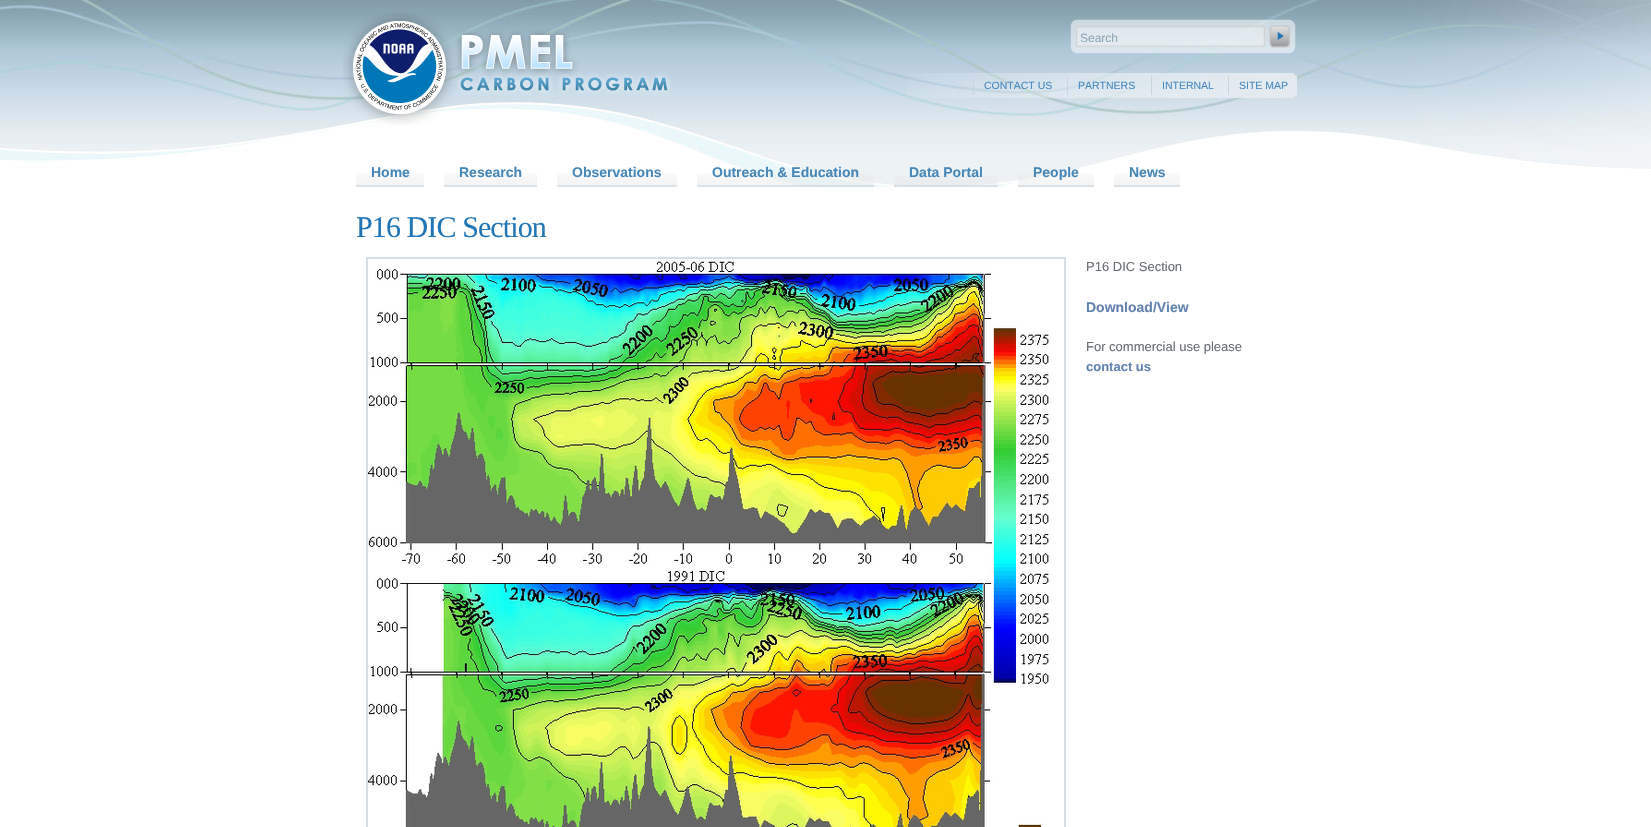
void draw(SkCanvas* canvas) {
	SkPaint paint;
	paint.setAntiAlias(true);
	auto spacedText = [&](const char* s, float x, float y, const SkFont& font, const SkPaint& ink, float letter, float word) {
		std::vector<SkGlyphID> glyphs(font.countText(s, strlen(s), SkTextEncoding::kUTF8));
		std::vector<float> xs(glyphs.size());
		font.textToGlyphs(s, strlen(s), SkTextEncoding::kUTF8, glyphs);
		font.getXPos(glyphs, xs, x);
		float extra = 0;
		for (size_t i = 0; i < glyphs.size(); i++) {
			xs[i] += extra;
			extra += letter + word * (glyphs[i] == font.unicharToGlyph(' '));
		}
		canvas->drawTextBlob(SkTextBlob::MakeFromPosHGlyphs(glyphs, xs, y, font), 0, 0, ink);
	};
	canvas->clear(0xffffffff);
	canvas->drawImageRect(SkImages::DeferredFromEncodedData(SkData::MakeFromFileName("img1.png")), SkRect::MakeXYWH(0, 0, 1651, 187), SkSamplingOptions());
	canvas->drawImageRect(SkImages::DeferredFromEncodedData(SkData::MakeFromFileName("img2.png")), SkRect::MakeXYWH(343, 12, 328, 113), SkSamplingOptions());
	canvas->drawImageRect(SkImages::DeferredFromEncodedData(SkData::MakeFromFileName("img3.png")), SkRect::MakeXYWH(1070, 19, 226, 35), SkSamplingOptions());
	SkFont f1(fontMgr->matchFamilyStyle("Liberation Sans", SkFontStyle::Normal()), 12);
	f1.setSubpixel(true);
	paint.setColor(0xff8da7b4);
	canvas->drawString("Search", 1080, 42, f1, paint);
	canvas->drawImageRect(SkImages::DeferredFromEncodedData(SkData::MakeFromFileName("img4.png")), SkRect::MakeXYWH(907, 73, 390, 25), SkSamplingOptions());
	paint.setColor(0xffcad5db);
	canvas->drawRect(SkRect::MakeXYWH(973, 76, 1, 19), paint);
	SkFont f2(fontMgr->matchFamilyStyle("Liberation Sans", SkFontStyle::Normal()), 10.5);
	f2.setSubpixel(true);
	paint.setColor(0xff4787c0);
	canvas->drawString("CONTACT US", 984, 89, f2, paint);
	paint.setColor(0xffcad5db);
	canvas->drawRect(SkRect::MakeXYWH(1067, 76, 1, 19), paint);
	paint.setColor(0xff4787c0);
	canvas->drawString("PARTNERS", 1078, 89, f2, paint);
	paint.setColor(0xffcad5db);
	canvas->drawRect(SkRect::MakeXYWH(1151, 76, 1, 19), paint);
	paint.setColor(0xff4787c0);
	canvas->drawString("INTERNAL", 1162, 89, f2, paint);
	paint.setColor(0xffcad5db);
	canvas->drawRect(SkRect::MakeXYWH(1228, 76, 1, 19), paint);
	paint.setColor(0xff4787c0);
	canvas->drawString("SITE MAP", 1239, 89, f2, paint);
	canvas->drawImageRect(SkImages::DeferredFromEncodedData(SkData::MakeFromFileName("img5.png")), SkRect::MakeXYWH(356, 173, 68, 14), SkSamplingOptions());
	SkFont f3(fontMgr->matchFamilyStyle("Liberation Sans", SkFontStyle::Bold()), 14);
	f3.setSubpixel(true);
	paint.setColor(0xff4787b8);
	canvas->drawString("Home", 371, 177, f3, paint);
	canvas->drawImageRect(SkImages::DeferredFromEncodedData(SkData::MakeFromFileName("img6.png")), SkRect::MakeXYWH(444, 173, 93, 14), SkSamplingOptions());
	canvas->drawString("Research", 459, 177, f3, paint);
	canvas->drawImageRect(SkImages::DeferredFromEncodedData(SkData::MakeFromFileName("img7.png")), SkRect::MakeXYWH(557, 173, 120, 14), SkSamplingOptions());
	canvas->drawString("Observations", 572, 177, f3, paint);
	canvas->drawImageRect(SkImages::DeferredFromEncodedData(SkData::MakeFromFileName("img8.png")), SkRect::MakeXYWH(697, 173, 177, 14), SkSamplingOptions());
	canvas->drawString("Outreach & Education", 712, 177, f3, paint);
	canvas->drawImageRect(SkImages::DeferredFromEncodedData(SkData::MakeFromFileName("img9.png")), SkRect::MakeXYWH(894, 176, 104, 11), SkSamplingOptions());
	canvas->drawString("Data Portal", 909, 177, f3, paint);
	canvas->drawImageRect(SkImages::DeferredFromEncodedData(SkData::MakeFromFileName("img10.png")), SkRect::MakeXYWH(1018, 173, 76, 14), SkSamplingOptions());
	canvas->drawString("People", 1033, 177, f3, paint);
	canvas->drawImageRect(SkImages::DeferredFromEncodedData(SkData::MakeFromFileName("img11.png")), SkRect::MakeXYWH(1114, 173, 66, 14), SkSamplingOptions());
	canvas->drawString("News", 1129, 177, f3, paint);
	SkFont f4(fontMgr->matchFamilyStyle("Liberation Serif", SkFontStyle::Normal()), 30);
	f4.setSubpixel(true);
	paint.setColor(0xff2176b7);
	spacedText("P16 DIC Section", 356, 237, f4, paint, -0.9, 0);
	paint.setColor(0xffd7dee4);
	canvas->drawRect(SkRect::MakeXYWH(366, 257, 700, 570), paint);
	canvas->drawImageRect(SkImages::DeferredFromEncodedData(SkData::MakeFromFileName("img12.png")), SkRect::MakeXYWH(368, 259, 696, 568), SkSamplingOptions());
	SkFont f5(fontMgr->matchFamilyStyle("Liberation Sans", SkFontStyle::Normal()), 13);
	f5.setSubpixel(true);
	paint.setColor(0xff666d74);
	canvas->drawString("P16 DIC Section", 1086, 271, f5, paint);
	paint.setColor(0xff6182af);
	canvas->drawString("Download/View", 1086, 312, f3, paint);
	paint.setColor(0xff666d74);
	canvas->drawString("For commercial use please", 1086, 351, f5, paint);
	SkFont f6(fontMgr->matchFamilyStyle("Liberation Sans", SkFontStyle::Bold()), 13);
	f6.setSubpixel(true);
	paint.setColor(0xff6182af);
	canvas->drawString("contact us", 1086, 371, f6, paint);
}
